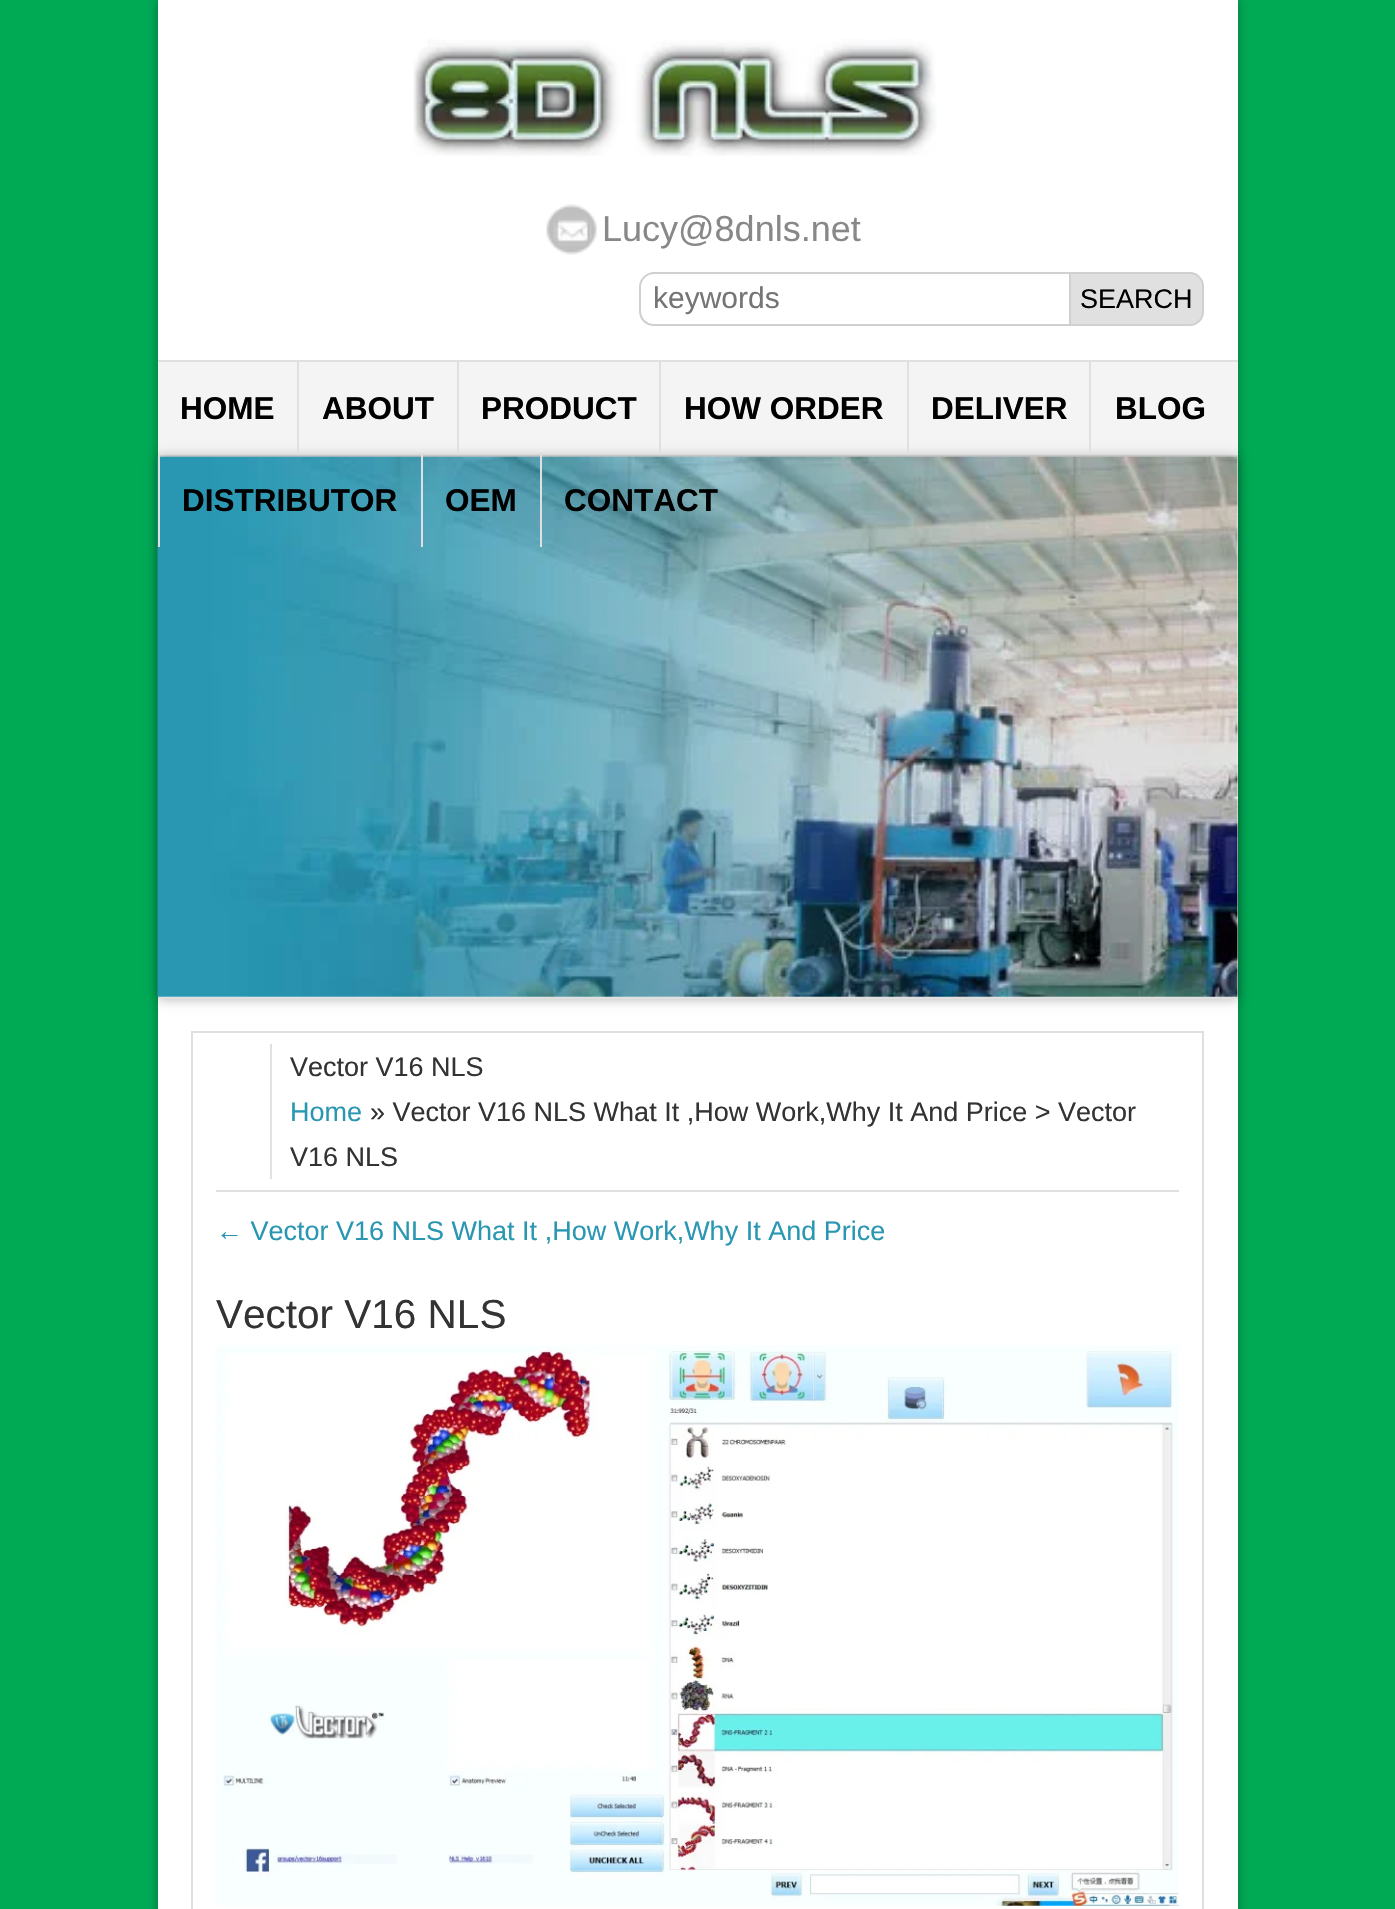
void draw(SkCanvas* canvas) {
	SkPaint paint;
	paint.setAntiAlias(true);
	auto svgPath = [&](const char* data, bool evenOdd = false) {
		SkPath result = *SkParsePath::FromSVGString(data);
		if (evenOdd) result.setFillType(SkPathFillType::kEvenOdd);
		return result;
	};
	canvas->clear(0xff00aa55);
	paint.setColor(0x4d000000);
	paint.setMaskFilter(SkMaskFilter::MakeBlur(kNormal_SkBlurStyle, 5.5));
	canvas->drawRect(SkRect::MakeXYWH(158, 0, 1080, 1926), paint);
	paint.setMaskFilter(nullptr);
	paint.setColor(0xffffffff);
	canvas->drawRect(SkRect::MakeXYWH(158, 0, 1080, 1909), paint);
	canvas->drawImageRect(SkImages::DeferredFromEncodedData(SkData::MakeFromFileName("img1.png")), SkRect::MakeXYWH(413, 39, 524, 117), SkSamplingOptions());
	canvas->drawImageRect(SkImages::DeferredFromEncodedData(SkData::MakeFromFileName("img2.png")), SkRect::MakeXYWH(546, 204, 51, 51), SkSamplingOptions());
	SkFont f1(fontMgr->matchFamilyStyle("Liberation Sans", SkFontStyle::Normal()), 36);
	f1.setSubpixel(true);
	paint.setColor(0xff888888);
	canvas->drawString("Lucy@8dnls.net", 602, 241, f1, paint);
	paint.setColor(0xffd0d0d0);
	canvas->drawPath(svgPath("M654 272H1069V326H654C646 326 639 320 639 311V287C639 279 646 272 654 272ZM654 274H1069V324H654C647 324 641 318 641 311V287C641 280 647 274 654 274Z", true), paint);
	SkFont f2(fontMgr->matchFamilyStyle("Liberation Sans", SkFontStyle::Normal()), 30);
	f2.setSubpixel(true);
	paint.setColor(0xff757575);
	canvas->drawString("keywords", 653, 308, f2, paint);
	paint.setColor(0xffe0e0e0);
	canvas->drawPath(svgPath("M1070 273H1190C1197 273 1203 279 1203 286V312C1203 319 1197 325 1190 325H1070Z"), paint);
	paint.setStroke(true);
	paint.setStrokeWidth(2);
	paint.setColor(0xffd0d0d0);
	canvas->drawPath(svgPath("M1070 273H1190C1197 273 1203 279 1203 286V312C1203 319 1197 325 1190 325H1070Z"), paint);
	SkFont f3(fontMgr->matchFamilyStyle("Liberation Sans", SkFontStyle::Normal()), 27);
	f3.setSubpixel(true);
	paint.setStroke(false);
	paint.setColor(0xff000000);
	canvas->drawString("SEARCH", 1080, 308, f3, paint);
	paint.setColor(0xfff4f4f4);
	canvas->drawRect(SkRect::MakeXYWH(158, 362, 1080, 93), paint);
	paint.setColor(0xffe0e0e0);
	canvas->drawRect(SkRect::MakeXYWH(158, 360, 1080, 2), paint);
	canvas->drawRect(SkRect::MakeXYWH(158, 455, 1080, 2), paint);
	SkFont f4(fontMgr->matchFamilyStyle("Liberation Sans", SkFontStyle::Bold()), 31.5);
	f4.setSubpixel(true);
	paint.setColor(0xff000000);
	canvas->drawString("HOME", 180, 419, f4, paint);
	paint.setColor(0x4d000000);
	paint.setMaskFilter(SkMaskFilter::MakeBlur(kNormal_SkBlurStyle, 5.5));
	canvas->drawRect(SkRect::MakeXYWH(158, 457, 1080, 542), paint);
	paint.setMaskFilter(nullptr);
	paint.setColor(0xffe0e0e0);
	canvas->drawRect(SkRect::MakeXYWH(297, 362, 2, 93), paint);
	paint.setColor(0xff000000);
	canvas->drawString("ABOUT", 322, 419, f4, paint);
	paint.setColor(0xffe0e0e0);
	canvas->drawRect(SkRect::MakeXYWH(457, 362, 2, 93), paint);
	paint.setColor(0xff000000);
	canvas->drawString("PRODUCT", 481, 419, f4, paint);
	paint.setColor(0xffe0e0e0);
	canvas->drawRect(SkRect::MakeXYWH(659, 362, 2, 93), paint);
	paint.setColor(0xff000000);
	canvas->drawString("HOW ORDER", 684, 419, f4, paint);
	paint.setColor(0xffe0e0e0);
	canvas->drawRect(SkRect::MakeXYWH(907, 362, 2, 93), paint);
	paint.setColor(0xff000000);
	canvas->drawString("DELIVER", 931, 419, f4, paint);
	paint.setColor(0xffe0e0e0);
	canvas->drawRect(SkRect::MakeXYWH(1089, 362, 2, 93), paint);
	paint.setColor(0xff000000);
	canvas->drawString("BLOG", 1115, 419, f4, paint);
	paint.setColor(0xffffffff);
	canvas->drawRect(SkRect::MakeXYWH(158, 457, 1080, 540), paint);
	canvas->drawImageRect(SkImages::DeferredFromEncodedData(SkData::MakeFromFileName("img3.png")), SkRect::MakeXYWH(157, 456, 1081, 541), SkSamplingOptions());
	paint.setColor(0xffe0e0e0);
	canvas->drawRect(SkRect::MakeXYWH(158, 455, 2, 92), paint);
	paint.setColor(0xff000000);
	canvas->drawString("DISTRIBUTOR", 182, 511, f4, paint);
	paint.setColor(0xffe0e0e0);
	canvas->drawRect(SkRect::MakeXYWH(421, 455, 2, 92), paint);
	paint.setColor(0xff000000);
	canvas->drawString("OEM", 445, 511, f4, paint);
	paint.setColor(0xffe0e0e0);
	canvas->drawRect(SkRect::MakeXYWH(540, 455, 2, 92), paint);
	paint.setColor(0xff000000);
	canvas->drawString("CONTACT", 564, 511, f4, paint);
	paint.setColor(0xffe0e0e0);
	canvas->drawRect(SkRect::MakeXYWH(158, 997, 1080, 2), paint);
	paint.setStroke(true);
	paint.setColor(0xffdfdfe0);
	canvas->drawRect(SkRect::MakeXYWH(192, 1032, 1011, 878), paint);
	paint.setStroke(false);
	paint.setColor(0xffe0e0e0);
	canvas->drawRect(SkRect::MakeXYWH(216, 1190, 963, 2), paint);
	paint.setColor(0xffe1e1e1);
	canvas->drawRect(SkRect::MakeXYWH(270, 1044, 2, 135), paint);
	paint.setColor(0xff333333);
	canvas->drawString("Vector V16 NLS", 290, 1076, f3, paint);
	paint.setColor(0xff2997b2);
	canvas->drawString("Home", 290, 1121, f3, paint);
	paint.setColor(0xff333333);
	canvas->drawString("» Vector V16 NLS What It ,How Work,Why It And Price > Vector", 370, 1121, f3, paint);
	canvas->drawString("V16 NLS", 290, 1166, f3, paint);
	paint.setColor(0xff2997b2);
	canvas->drawString("← Vector V16 NLS What It ,How Work,Why It And Price", 216, 1240, f3, paint);
	SkFont f5(fontMgr->matchFamilyStyle("Liberation Sans", SkFontStyle::Normal()), 40.5);
	f5.setSubpixel(true);
	paint.setColor(0xff333333);
	canvas->drawString("Vector V16 NLS", 216, 1328, f5, paint);
	canvas->drawImageRect(SkImages::DeferredFromEncodedData(SkData::MakeFromFileName("img4.png")), SkRect::MakeXYWH(216, 1345, 963, 561), SkSamplingOptions());
}
